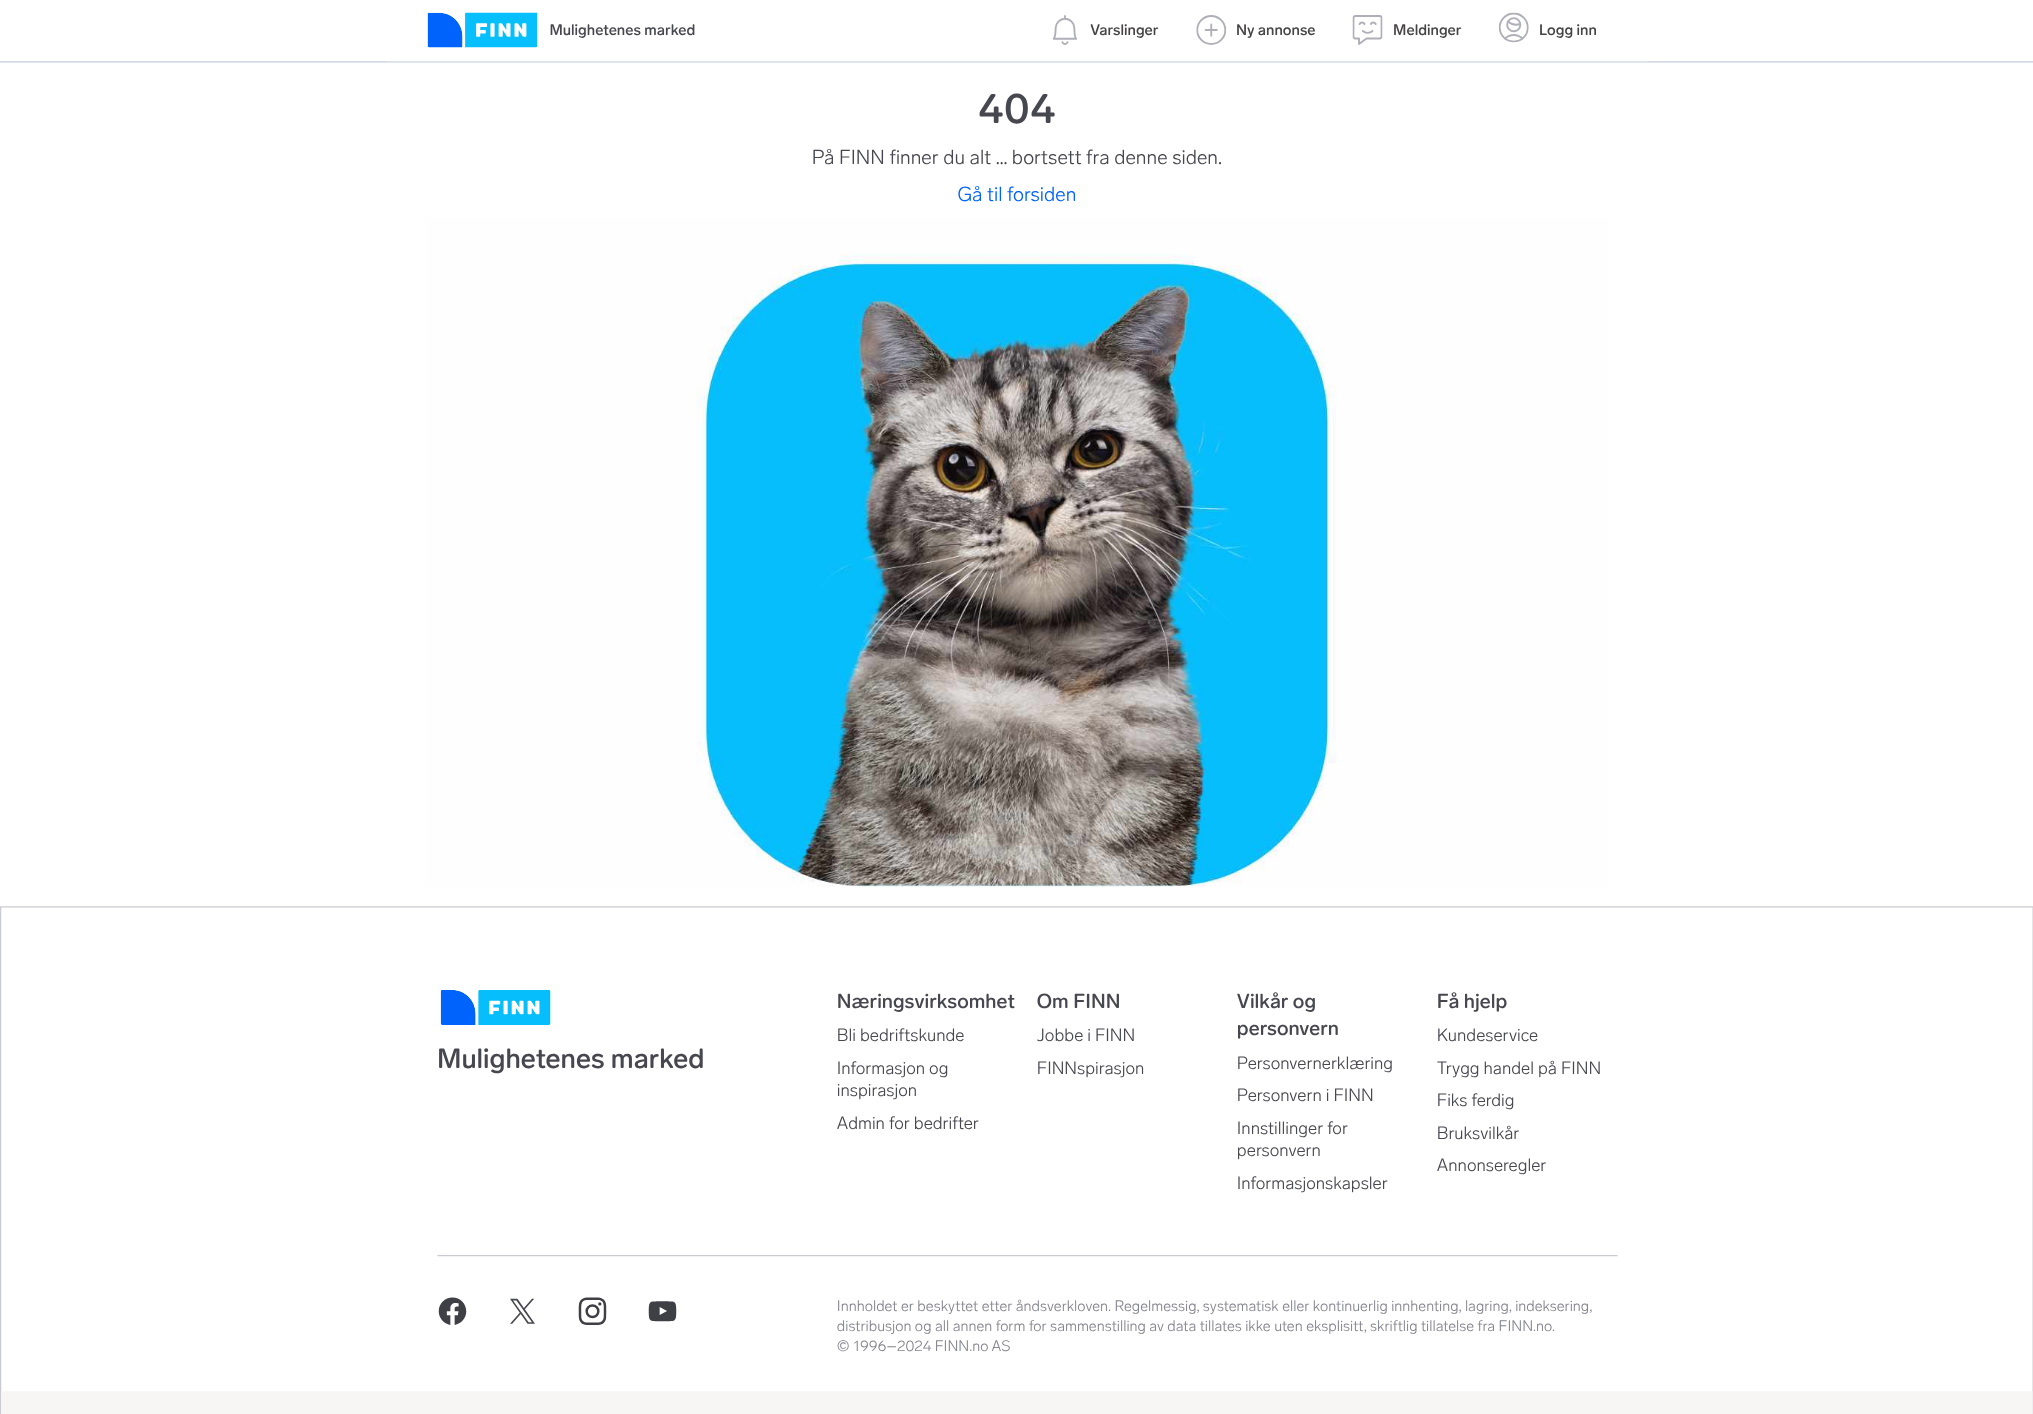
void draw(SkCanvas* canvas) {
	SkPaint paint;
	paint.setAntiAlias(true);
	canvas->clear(0xffffffff);
	canvas->drawImageRect(SkImages::DeferredFromEncodedData(SkData::MakeFromFileName("img1.png")), SkRect::MakeXYWH(0, 12, 2033, 1402), SkSamplingOptions());
}
